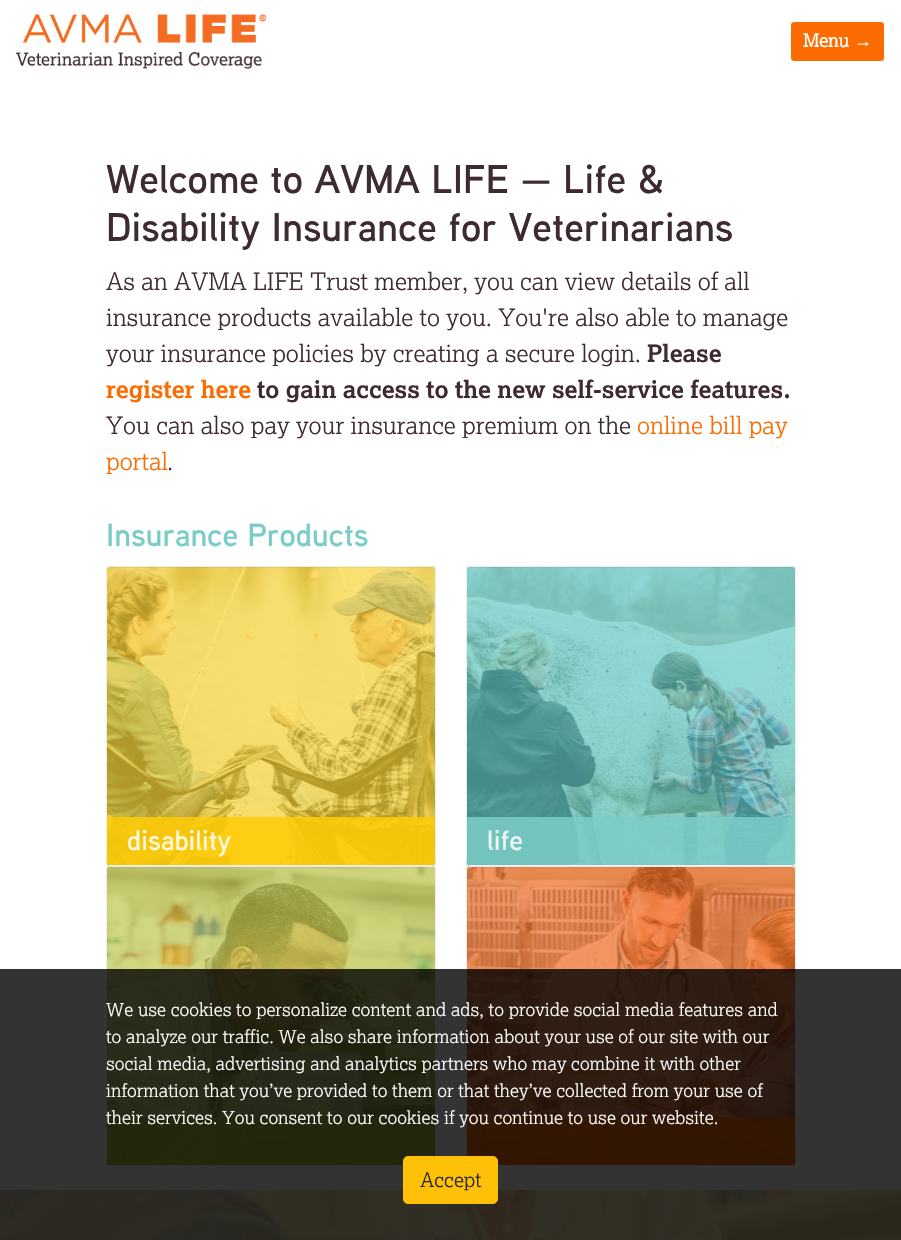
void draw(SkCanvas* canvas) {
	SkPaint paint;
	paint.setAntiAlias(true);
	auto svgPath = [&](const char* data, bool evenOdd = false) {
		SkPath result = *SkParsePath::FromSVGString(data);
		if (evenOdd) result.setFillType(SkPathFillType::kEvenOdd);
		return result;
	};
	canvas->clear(0xffffffff);
	canvas->drawImageRect(SkImages::DeferredFromEncodedData(SkData::MakeFromFileName("img1.png")), SkRect::MakeXYWH(16, 14, 250, 55), SkSamplingOptions());
	paint.setColor(0xfffc6b00);
	canvas->drawRoundRect(SkRect::MakeXYWH(790.5, 21.5, 94, 40), 3.5, 3.5, paint);
	paint.setStroke(true);
	paint.setStrokeWidth(1);
	paint.setColor(0xffffffff);
	canvas->drawRoundRect(SkRect::MakeXYWH(790.5, 21.5, 94, 40), 3.5, 3.5, paint);
	SkFont f1(fontMgr->matchFamilyStyle("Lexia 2", SkFontStyle::Bold()), 18);
	f1.setSubpixel(true);
	paint.setStroke(false);
	canvas->drawString("Menu", 803, 47, f1, paint);
	SkFont f2(fontMgr->matchFamilyStyle("Liberation Serif", SkFontStyle::Bold()), 18);
	f2.setSubpixel(true);
	canvas->drawString("→", 854, 47, f2, paint);
	SkFont f3(fontMgr->matchFamilyStyle("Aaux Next", SkFontStyle(600, SkFontStyle::kNormal_Width, SkFontStyle::kUpright_Slant)), 40);
	f3.setSubpixel(true);
	paint.setColor(0xff3e2b2e);
	canvas->drawString("Welcome to AVMA LIFE — Life &", 106, 193, f3, paint);
	canvas->drawString("Disability Insurance for Veterinarians", 106, 241, f3, paint);
	SkFont f4(fontMgr->matchFamilyStyle("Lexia", SkFontStyle(300, SkFontStyle::kNormal_Width, SkFontStyle::kUpright_Slant)), 24);
	f4.setSubpixel(true);
	canvas->drawString("As an AVMA LIFE Trust member, you can view details of all", 106, 290, f4, paint);
	canvas->drawString("insurance products available to you. You're also able to manage", 106, 326, f4, paint);
	canvas->drawString("your insurance policies by creating a secure login.", 106, 362, f4, paint);
	SkFont f5(fontMgr->matchFamilyStyle("Lexia", SkFontStyle::Bold()), 24);
	f5.setSubpixel(true);
	canvas->drawString("Please", 647, 362, f5, paint);
	paint.setColor(0xfffc6b00);
	canvas->drawString("register here", 106, 398, f5, paint);
	paint.setColor(0xff3e2b2e);
	canvas->drawString("to gain access to the new self-service features.", 257, 398, f5, paint);
	canvas->drawString("You can also pay your insurance premium on the", 106, 434, f4, paint);
	paint.setColor(0xfffc6b00);
	canvas->drawString("online bill pay", 637, 434, f4, paint);
	canvas->drawString("portal", 106, 470, f4, paint);
	paint.setColor(0xff3e2b2e);
	canvas->drawString(".", 167, 470, f4, paint);
	SkFont f6(fontMgr->matchFamilyStyle("Aaux Next", SkFontStyle(600, SkFontStyle::kNormal_Width, SkFontStyle::kUpright_Slant)), 32);
	f6.setSubpixel(true);
	paint.setColor(0xff7accc8);
	canvas->drawString("Insurance Products", 106, 546, f6, paint);
	canvas->drawImageRect(SkImages::DeferredFromEncodedData(SkData::MakeFromFileName("img2.png")), SkRect::MakeXYWH(106, 566, 330, 300), SkSamplingOptions());
	paint.setColor(0x0d000000);
	canvas->drawPath(svgPath("M110 568H432C434 568 435 569 435 571C435 569 434 567 432 567H110C108 567 107 569 107 571C107 569 108 568 110 568Z"), paint);
	paint.setStroke(true);
	paint.setColor(0xffededed);
	canvas->drawRoundRect(SkRect::MakeXYWH(106.5, 566.5, 329, 299), 3.5, 3.5, paint);
	paint.setStroke(false);
	paint.setColor(0xd9ffcb05);
	canvas->drawPath(svgPath("M107 817H435V862C435 863.5 433.5 865 432 865H110C108.5 865 107 863.5 107 862Z"), paint);
	SkFont f7(fontMgr->matchFamilyStyle("Aaux Next", SkFontStyle(600, SkFontStyle::kNormal_Width, SkFontStyle::kUpright_Slant)), 28);
	f7.setSubpixel(true);
	paint.setColor(0xfffef7db);
	canvas->drawString("disability", 127, 850, f7, paint);
	canvas->drawImageRect(SkImages::DeferredFromEncodedData(SkData::MakeFromFileName("img3.png")), SkRect::MakeXYWH(466, 566, 330, 300), SkSamplingOptions());
	paint.setColor(0x0d000000);
	canvas->drawPath(svgPath("M470 568H792C794 568 795 569 795 571C795 569 794 567 792 567H470C468 567 467 569 467 571C467 569 468 568 470 568Z"), paint);
	paint.setStroke(true);
	paint.setColor(0xffededed);
	canvas->drawRoundRect(SkRect::MakeXYWH(466.5, 566.5, 329, 299), 3.5, 3.5, paint);
	paint.setStroke(false);
	paint.setColor(0xd97accc8);
	canvas->drawPath(svgPath("M467 817H795V862C795 863.5 793.5 865 792 865H470C468.5 865 467 863.5 467 862Z"), paint);
	paint.setColor(0xffeaf6f5);
	canvas->drawString("life", 487, 850, f7, paint);
	canvas->drawImageRect(SkImages::DeferredFromEncodedData(SkData::MakeFromFileName("img4.png")), SkRect::MakeXYWH(106, 866, 330, 300), SkSamplingOptions());
	paint.setColor(0x0d000000);
	canvas->drawPath(svgPath("M110 868H432C434 868 435 869 435 871C435 869 434 867 432 867H110C108 867 107 869 107 871C107 869 108 868 110 868Z"), paint);
	paint.setStroke(true);
	paint.setColor(0xffededed);
	canvas->drawRoundRect(SkRect::MakeXYWH(106.5, 866.5, 329, 299), 3.5, 3.5, paint);
	paint.setStroke(false);
	paint.setColor(0xd9a3c13c);
	canvas->drawPath(svgPath("M107 1117H435V1162C435 1163.5 433.5 1165 432 1165H110C108.5 1165 107 1163.5 107 1162Z"), paint);
	canvas->drawImageRect(SkImages::DeferredFromEncodedData(SkData::MakeFromFileName("img5.png")), SkRect::MakeXYWH(466, 866, 330, 300), SkSamplingOptions());
	paint.setColor(0x0d000000);
	canvas->drawPath(svgPath("M470 868H792C794 868 795 869 795 871C795 869 794 867 792 867H470C468 867 467 869 467 871C467 869 468 868 470 868Z"), paint);
	paint.setStroke(true);
	paint.setColor(0xffededed);
	canvas->drawRoundRect(SkRect::MakeXYWH(466.5, 866.5, 329, 299), 3.5, 3.5, paint);
	paint.setStroke(false);
	paint.setColor(0xd9fc6b00);
	canvas->drawPath(svgPath("M467 1117H795V1162C795 1163.5 793.5 1165 792 1165H470C468.5 1165 467 1163.5 467 1162Z"), paint);
	canvas->drawImageRect(SkImages::DeferredFromEncodedData(SkData::MakeFromFileName("img6.png")), SkRect::MakeXYWH(0, 1190, 901, 50), SkSamplingOptions());
	paint.setColor(0xcc000000);
	canvas->drawRect(SkRect::MakeXYWH(0, 969, 901, 271), paint);
	SkFont f8(fontMgr->matchFamilyStyle("Lexia", SkFontStyle(300, SkFontStyle::kNormal_Width, SkFontStyle::kUpright_Slant)), 18);
	f8.setSubpixel(true);
	paint.setColor(0xffffffff);
	canvas->drawString("We use cookies to personalize content and ads, to provide social media features and", 106, 1016, f8, paint);
	canvas->drawString("to analyze our traffic. We also share information about your use of our site with our", 106, 1043, f8, paint);
	canvas->drawString("social media, advertising and analytics partners who may combine it with other", 106, 1070, f8, paint);
	canvas->drawString("information that you’ve provided to them or that they’ve collected from your use of", 106, 1097, f8, paint);
	canvas->drawString("their services. You consent to our cookies if you continue to use our website.", 106, 1124, f8, paint);
	paint.setColor(0xffffc107);
	canvas->drawRoundRect(SkRect::MakeXYWH(403.5, 1156.5, 94, 47), 4.5, 4.5, paint);
	paint.setStroke(true);
	canvas->drawRoundRect(SkRect::MakeXYWH(403.5, 1156.5, 94, 47), 4.5, 4.5, paint);
	SkFont f9(fontMgr->matchFamilyStyle("Lexia", SkFontStyle(300, SkFontStyle::kNormal_Width, SkFontStyle::kUpright_Slant)), 20);
	f9.setSubpixel(true);
	paint.setStroke(false);
	paint.setColor(0xff212529);
	canvas->drawString("Accept", 420, 1187, f9, paint);
}
